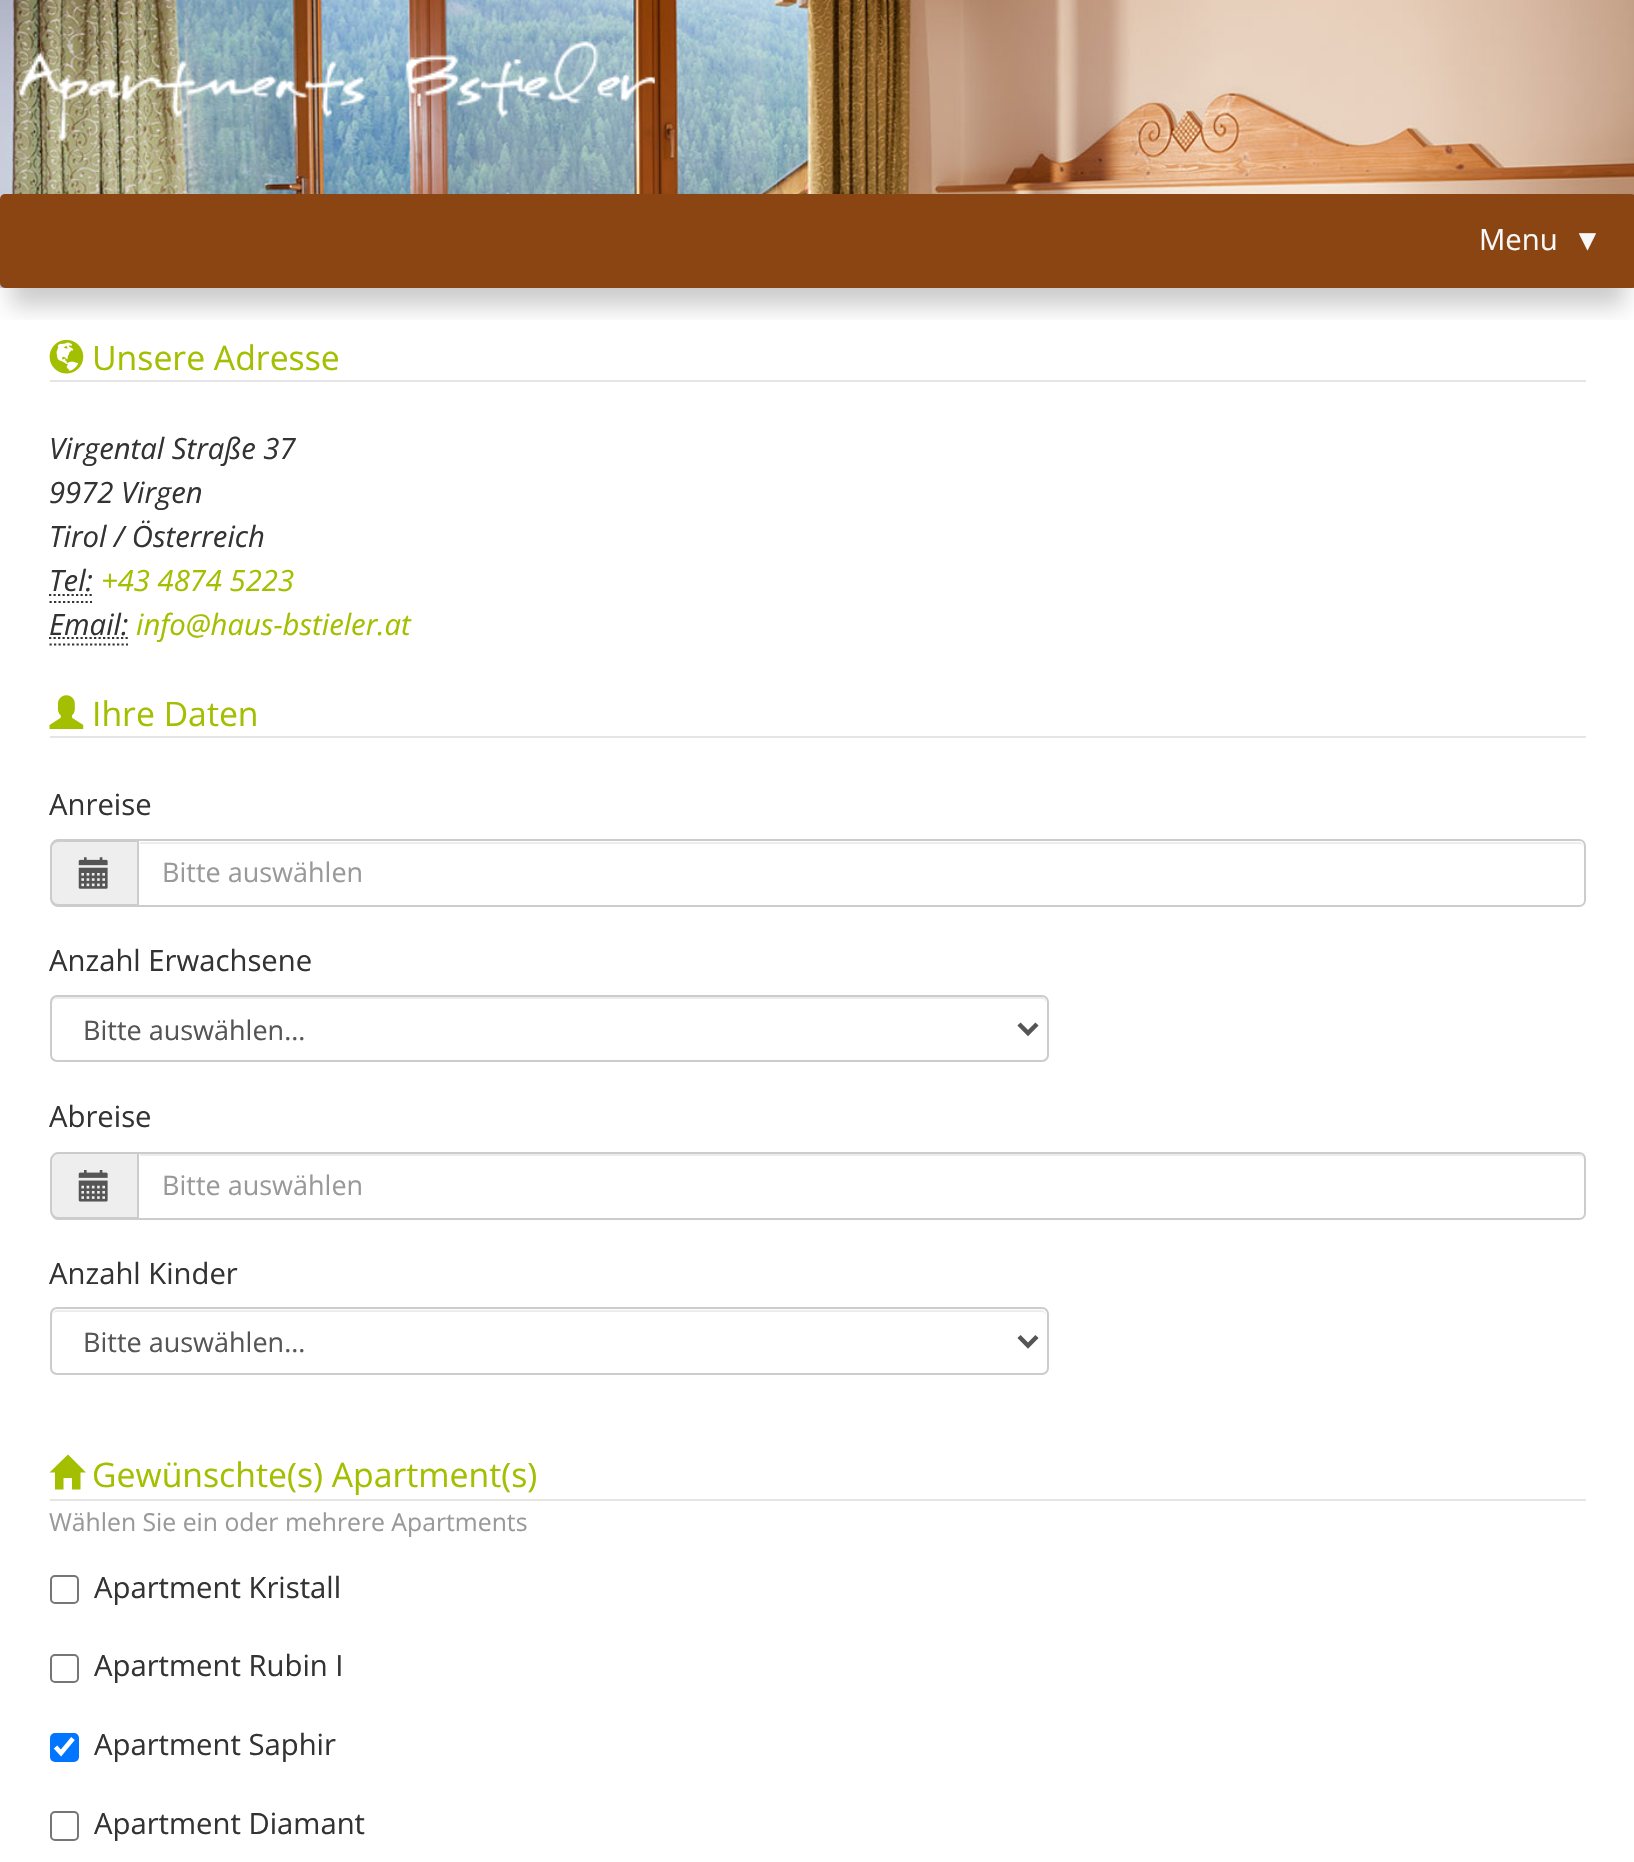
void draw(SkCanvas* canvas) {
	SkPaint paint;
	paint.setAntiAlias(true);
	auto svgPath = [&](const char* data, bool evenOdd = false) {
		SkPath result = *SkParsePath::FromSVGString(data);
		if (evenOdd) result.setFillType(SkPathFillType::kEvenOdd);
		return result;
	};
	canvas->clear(0xffffffff);
	canvas->drawImageRect(SkImages::DeferredFromEncodedData(SkData::MakeFromFileName("img1.png")), SkRect::MakeXYWH(0, 0, 1634, 288), SkSamplingOptions());
	canvas->drawImageRect(SkImages::DeferredFromEncodedData(SkData::MakeFromFileName("img2.png")), SkRect::MakeXYWH(19, 41, 636, 102), SkSamplingOptions());
	canvas->drawImageRect(SkImages::DeferredFromEncodedData(SkData::MakeFromFileName("img3.png")), SkRect::MakeXYWH(49, 339, 35, 35), SkSamplingOptions());
	canvas->save();
	canvas->clipRect(SkRect::MakeXYWH(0, 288, 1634, 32));
	paint.setColor(0x33000000);
	paint.setMaskFilter(SkMaskFilter::MakeBlur(kNormal_SkBlurStyle, 11));
	canvas->drawRect(SkRect::MakeXYWH(11, 189, 1614, 117), paint);
	paint.setMaskFilter(nullptr);
	canvas->restore();
	paint.setColor(0xff8b4513);
	canvas->drawRoundRect(SkRect::MakeXYWH(0, 194, 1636, 94), 5, 5, paint);
	SkFont f1(fontMgr->matchFamilyStyle("Open Sans", SkFontStyle::Normal()), 29.25);
	f1.setSubpixel(true);
	paint.setColor(0xfff8f8f8);
	canvas->drawString("Menu", 1479, 250, f1, paint);
	SkFont f2(fontMgr->matchFamilyStyle("Liberation Serif", SkFontStyle::Normal()), 29.25);
	f2.setSubpixel(true);
	canvas->drawString("▼", 1573, 250, f2, paint);
	paint.setColor(0xffe5e5e5);
	canvas->drawRect(SkRect::MakeXYWH(50, 380, 1536, 2), paint);
	SkFont f3(fontMgr->matchFamilyStyle("Open Sans", SkFontStyle::Normal()), 33.75);
	f3.setSubpixel(true);
	paint.setColor(0xffa4be00);
	canvas->drawString("Unsere Adresse", 92, 370, f3, paint);
	SkFont f4(fontMgr->matchFamilyStyle("Open Sans", SkFontStyle::Italic()), 29.25);
	f4.setSubpixel(true);
	paint.setColor(0xff333333);
	canvas->drawString("Virgental Straße 37", 49, 459, f4, paint);
	canvas->drawString("9972 Virgen", 49, 503, f4, paint);
	canvas->drawString("Tirol / Österreich", 49, 547, f4, paint);
	canvas->drawString("Tel:", 49, 591, f4, paint);
	paint.setStroke(true);
	paint.setStrokeWidth(2.2);
	paint.setPathEffect(SkDashPathEffect::Make({{2.25f, 2.25f}}, 0));
	canvas->drawPath(svgPath("M49.5 602H92M49 595H93"), paint);
	paint.setPathEffect(nullptr);
	paint.setStroke(false);
	paint.setColor(0xffa4be00);
	canvas->drawString("+43 4874 5223", 101, 591, f4, paint);
	paint.setColor(0xff333333);
	canvas->drawString("Email:", 49, 635, f4, paint);
	paint.setStroke(true);
	paint.setPathEffect(SkDashPathEffect::Make({{2.25f, 2.25f}}, 0));
	canvas->drawPath(svgPath("M49.5 644.5H128"), paint);
	paint.setPathEffect(nullptr);
	paint.setPathEffect(SkDashPathEffect::Make({{2.25f, 2.25f}}, 0));
	canvas->drawPath(svgPath("M49 638H128.5"), paint);
	paint.setPathEffect(nullptr);
	paint.setStroke(false);
	paint.setColor(0xffa4be00);
	canvas->drawString("info@haus-bstieler.at", 136, 635, f4, paint);
	paint.setColor(0xffe5e5e5);
	canvas->drawRect(SkRect::MakeXYWH(50, 736, 1536, 2), paint);
	canvas->drawImageRect(SkImages::DeferredFromEncodedData(SkData::MakeFromFileName("img4.png")), SkRect::MakeXYWH(49, 695, 35, 34), SkSamplingOptions());
	paint.setColor(0xffa4be00);
	canvas->drawString("Ihre Daten", 92, 726, f3, paint);
	paint.setColor(0xff333333);
	canvas->drawString("Anreise", 49, 815, f1, paint);
	paint.setColor(0xffeeeeee);
	canvas->drawPath(svgPath("M59 839H137V907H59C54 907 50 903 50 898V848C50 843 54 839 59 839Z"), paint);
	paint.setColor(0xffcccccc);
	canvas->drawPath(svgPath("M58 839H137V907H58C54 907 50 903 50 898V848C50 843 54 839 58 839ZM58 842H137V904H58C55 904 52 901 52 898V848C52 845 55 842 58 842Z", true), paint);
	canvas->drawImageRect(SkImages::DeferredFromEncodedData(SkData::MakeFromFileName("img5.png")), SkRect::MakeXYWH(78, 857, 30, 32), SkSamplingOptions());
	paint.setColor(0xffececec);
	canvas->drawPath(svgPath("M140 844H1580C1582 844 1584 846 1584 848C1584 845 1582 842 1579 842H140Z"), paint);
	paint.setStroke(true);
	paint.setStrokeWidth(2);
	paint.setColor(0xffcccccc);
	canvas->drawPath(svgPath("M138 840H1579C1582.5 840 1585 842.5 1585 846V900C1585 903.5 1582.5 906 1579 906H138Z"), paint);
	SkFont f5(fontMgr->matchFamilyStyle("Open Sans", SkFontStyle::Normal()), 27);
	f5.setSubpixel(true);
	paint.setStroke(false);
	paint.setColor(0xff999999);
	canvas->drawString("Bitte auswählen", 162, 882, f5, paint);
	paint.setColor(0xff333333);
	canvas->drawString("Anzahl Erwachsene", 49, 971, f1, paint);
	paint.setColor(0xffececec);
	canvas->drawPath(svgPath("M56 999H1042C1044 999 1046 1001 1046 1004V1002C1046 999 1044 997 1041 997H57C54 997 52 999 52 1002V1004C52 1001 54 999 56 999Z"), paint);
	paint.setStroke(true);
	paint.setColor(0xffcccccc);
	canvas->drawRoundRect(SkRect::MakeXYWH(51, 996, 997, 65), 6, 6, paint);
	paint.setStrokeWidth(4.5);
	paint.setColor(0xff555555);
	canvas->drawPath(svgPath("M1019 1024L1028 1033L1037 1024"), paint);
	paint.setStroke(false);
	canvas->drawString("Bitte auswählen...", 83, 1040, f5, paint);
	paint.setColor(0xff333333);
	canvas->drawString("Abreise", 49, 1127, f1, paint);
	paint.setColor(0xffeeeeee);
	canvas->drawPath(svgPath("M59 1152H137V1220H59C54 1220 50 1216 50 1211V1161C50 1156 54 1152 59 1152Z"), paint);
	paint.setColor(0xffcccccc);
	canvas->drawPath(svgPath("M58 1152H137V1220H58C54 1220 50 1215 50 1210V1161C50 1156 54 1152 58 1152ZM58 1154H137V1217H58C55 1217 52 1214 52 1210V1161C52 1157 55 1154 58 1154Z", true), paint);
	canvas->drawImageRect(SkImages::DeferredFromEncodedData(SkData::MakeFromFileName("img6.png")), SkRect::MakeXYWH(78, 1170, 30, 32), SkSamplingOptions());
	paint.setColor(0xffececec);
	canvas->drawPath(svgPath("M140 1156H1580C1582 1156 1584 1159 1584 1161C1584 1158 1583 1154 1579 1154H140Z"), paint);
	paint.setStroke(true);
	paint.setStrokeWidth(2);
	paint.setColor(0xffcccccc);
	canvas->drawPath(svgPath("M138 1153H1579C1582.5 1153 1585 1155.5 1585 1159V1213C1585 1216.5 1582.5 1219 1579 1219H138Z"), paint);
	paint.setStroke(false);
	paint.setColor(0xff999999);
	canvas->drawString("Bitte auswählen", 162, 1195, f5, paint);
	paint.setColor(0xff333333);
	canvas->drawString("Anzahl Kinder", 49, 1284, f1, paint);
	paint.setColor(0xffececec);
	canvas->drawPath(svgPath("M56 1312H1042C1044 1312 1046 1314 1046 1316C1046 1313 1044 1310 1041 1310H57C54 1310 52 1313 52 1316C52 1314 54 1312 56 1312Z"), paint);
	paint.setStroke(true);
	paint.setColor(0xffcccccc);
	canvas->drawRoundRect(SkRect::MakeXYWH(51, 1308, 997, 66), 6, 6, paint);
	paint.setStrokeWidth(4.5);
	paint.setColor(0xff555555);
	canvas->drawPath(svgPath("M1019 1336.5L1028 1345.5L1037 1336.5"), paint);
	paint.setStroke(false);
	canvas->drawString("Bitte auswählen...", 83, 1352, f5, paint);
	paint.setColor(0xffe5e5e5);
	canvas->drawRect(SkRect::MakeXYWH(50, 1499, 1536, 2), paint);
	paint.setColor(0xffa4be00);
	canvas->drawPath(svgPath("M49.5 1472.5L68 1454.5L86 1472.5H80.5V1489.5H72V1478H63.5V1489.5H55V1472.5Z"), paint);
	canvas->drawString("Gewünschte(s) Apartment(s)", 92, 1487, f3, paint);
	SkFont f6(fontMgr->matchFamilyStyle("Open Sans", SkFontStyle::Normal()), 24.75);
	f6.setSubpixel(true);
	paint.setColor(0xff999999);
	canvas->drawString("Wählen Sie ein oder mehrere Apartments", 49, 1531, f6, paint);
	paint.setStroke(true);
	paint.setStrokeWidth(2);
	paint.setColor(0xff767676);
	canvas->drawRoundRect(SkRect::MakeXYWH(51, 1576, 27, 27), 4, 4, paint);
	paint.setStroke(false);
	paint.setColor(0xff333333);
	canvas->drawString("Apartment Kristall", 94, 1598, f1, paint);
	paint.setStroke(true);
	paint.setColor(0xff767676);
	canvas->drawRoundRect(SkRect::MakeXYWH(51, 1655, 27, 27), 4, 4, paint);
	paint.setStroke(false);
	paint.setColor(0xff333333);
	canvas->drawString("Apartment Rubin I", 94, 1676, f1, paint);
	paint.setColor(0xff0075ff);
	canvas->drawRoundRect(SkRect::MakeXYWH(50, 1733, 29, 29), 5, 5, paint);
	paint.setStroke(true);
	paint.setStrokeWidth(4.7);
	paint.setColor(0xffffffff);
	canvas->drawPath(svgPath("M55.5 1747L61 1753L73 1738.5"), paint);
	paint.setStroke(false);
	paint.setColor(0xff333333);
	canvas->drawString("Apartment Saphir", 94, 1755, f1, paint);
	paint.setStroke(true);
	paint.setStrokeWidth(2);
	paint.setColor(0xff767676);
	canvas->drawRoundRect(SkRect::MakeXYWH(51, 1812, 27, 28), 4, 4, paint);
	paint.setStroke(false);
	paint.setColor(0xff333333);
	canvas->drawString("Apartment Diamant", 94, 1834, f1, paint);
}
